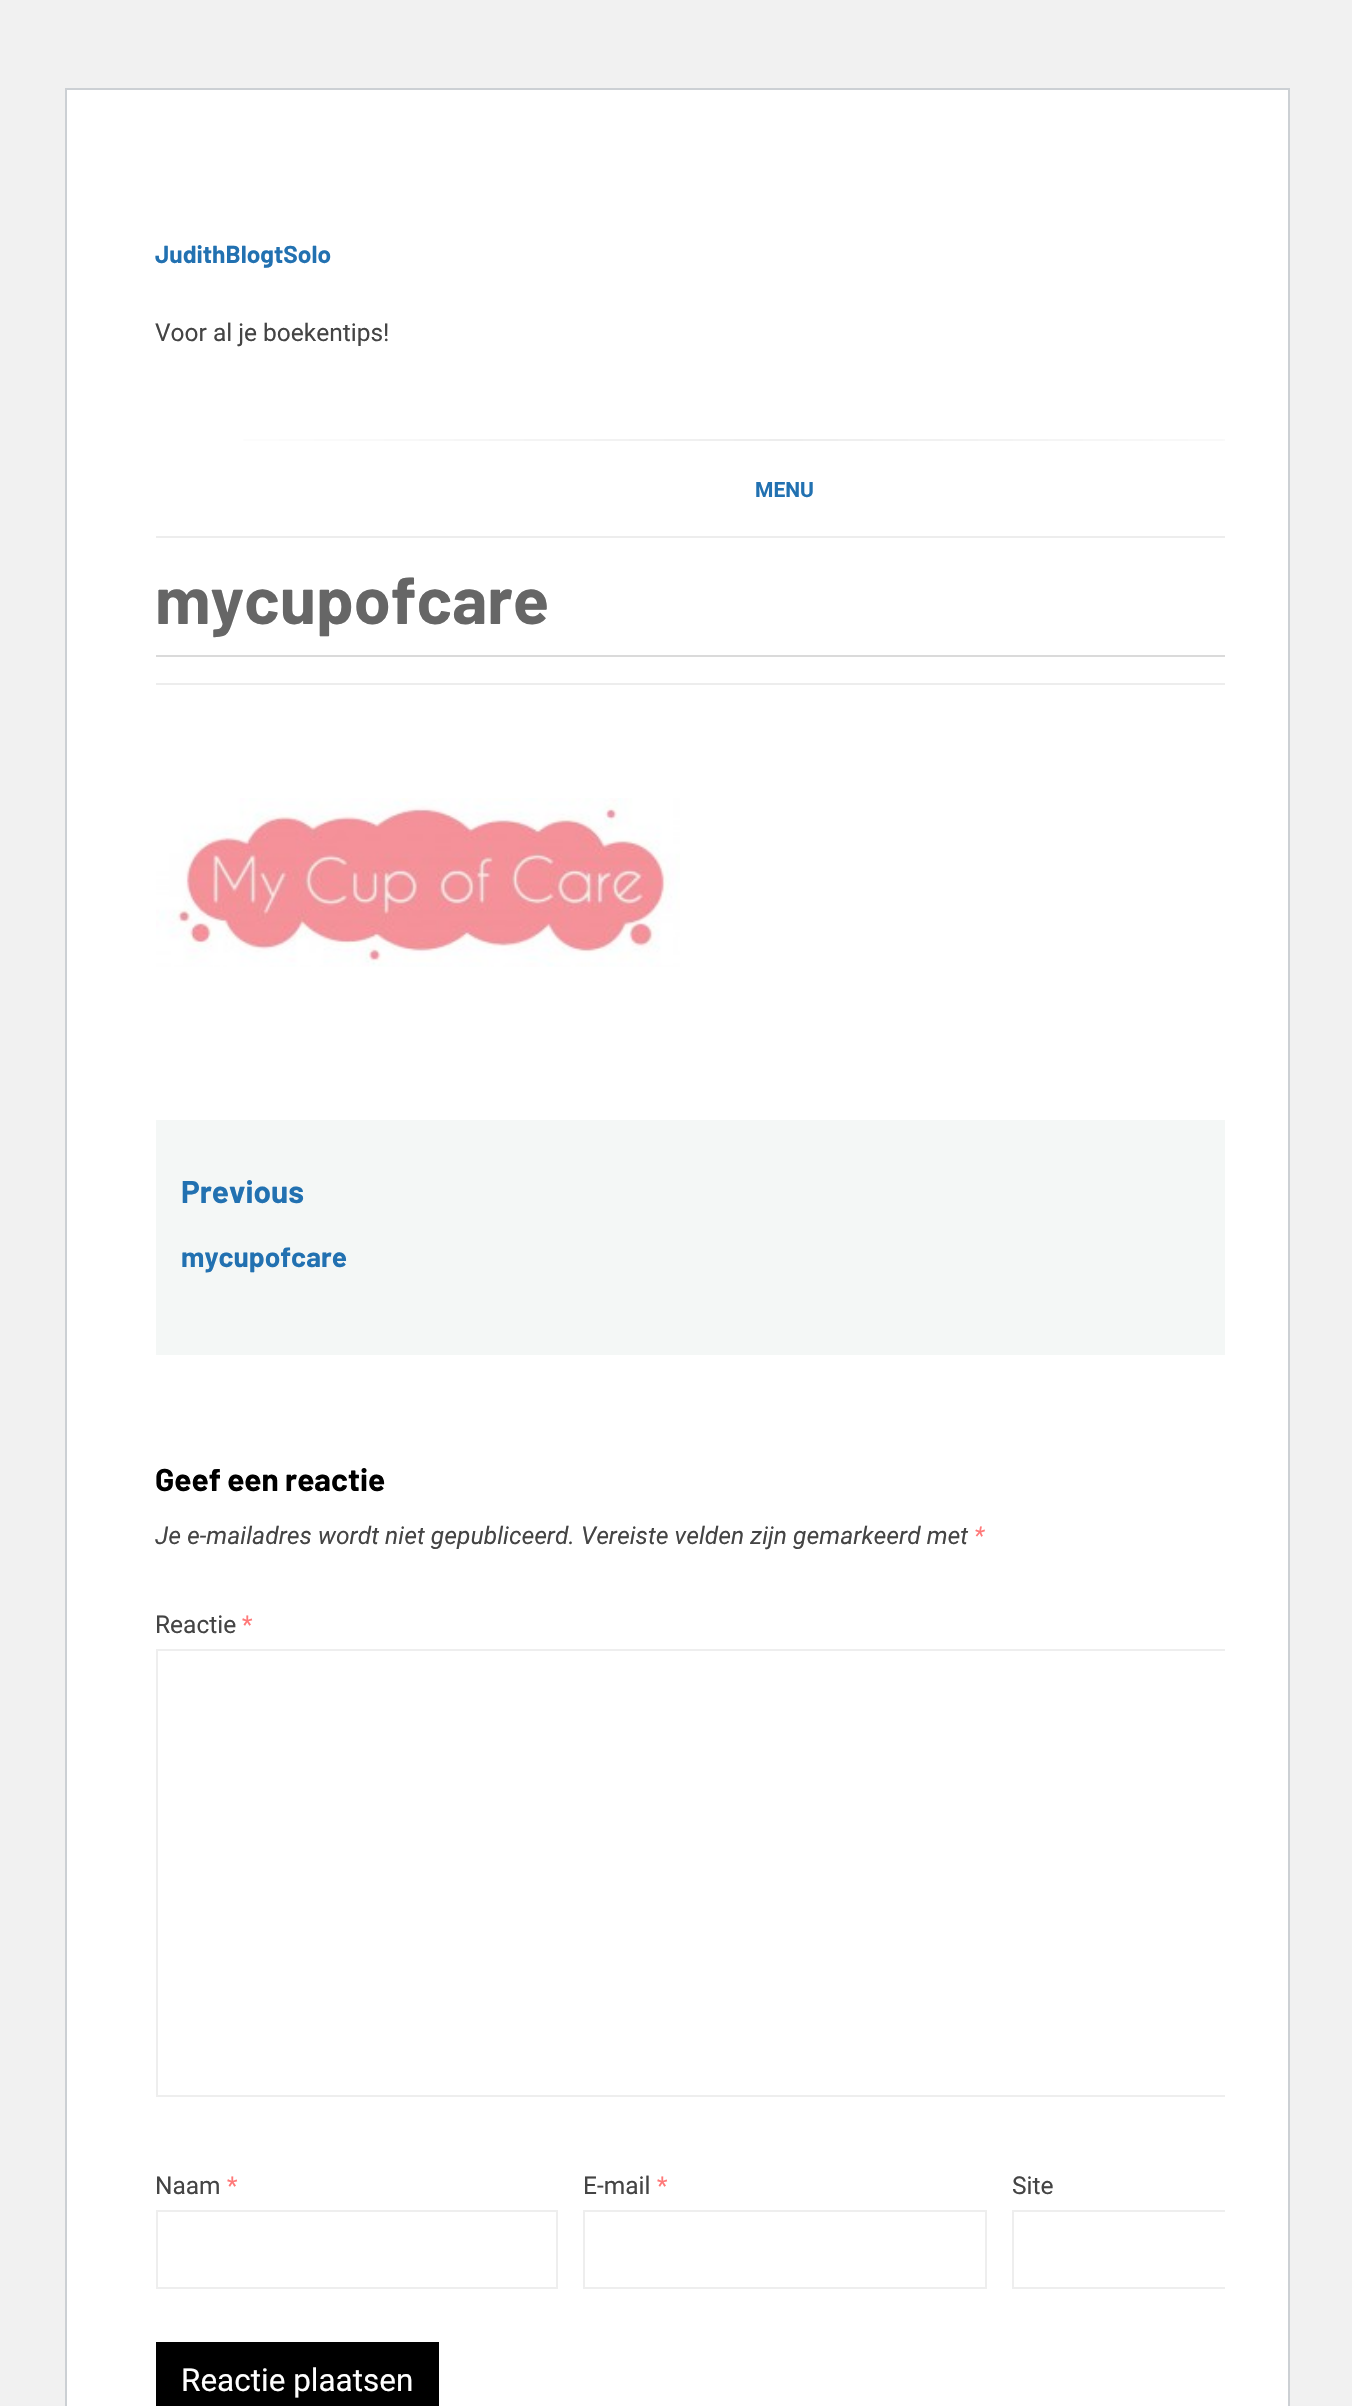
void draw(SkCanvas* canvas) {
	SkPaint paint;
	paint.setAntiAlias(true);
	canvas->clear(0xfff1f1f1);
	paint.setColor(0xffffffff);
	canvas->drawRect(SkRect::MakeXYWH(66, 89, 1223, 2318), paint);
	paint.setStroke(true);
	paint.setStrokeWidth(2);
	paint.setColor(0xffccd0d4);
	canvas->drawRect(SkRect::MakeXYWH(66, 89, 1223, 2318), paint);
	SkFont f1(fontMgr->matchFamilyStyle("Barlow", SkFontStyle::Bold()), 24.5);
	f1.setSubpixel(true);
	paint.setStroke(false);
	paint.setColor(0xff2271b1);
	canvas->drawString("JudithBlogtSolo", 155, 263, f1, paint);
	SkFont f2(fontMgr->matchFamilyStyle("Roboto", SkFontStyle::Normal()), 24.5);
	f2.setSubpixel(true);
	paint.setColor(0xff444444);
	canvas->drawString("Voor al je boekentips!", 155, 341, f2, paint);
	paint.setColor(0xffededed);
	canvas->drawRect(SkRect::MakeXYWH(156, 536, 1069, 2), paint);
	{
		const SkColor colors[] = {0xffffffff, 0xffededed, 0xffffffff};
		const float stops[] = {0, 0.5, 1};
		const SkPoint ends[] = {{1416, 440}, {156, 440}};
		paint.setShader(SkGradientShader::MakeLinear(ends, colors, stops, 3, SkTileMode::kClamp));
		paint.setAlpha(255);
	}
	canvas->drawRect(SkRect::MakeXYWH(243, 439, 982, 2), paint);
	SkFont f3(fontMgr->matchFamilyStyle("Roboto", SkFontStyle::Bold()), 21);
	f3.setSubpixel(true);
	paint.setShader(nullptr);
	paint.setColor(0xff2271b1);
	canvas->drawString("MENU", 755, 497, f3, paint);
	paint.setColor(0xffededed);
	canvas->drawRect(SkRect::MakeXYWH(156, 683, 1069, 2), paint);
	paint.setColor(0xffdadada);
	canvas->drawRect(SkRect::MakeXYWH(156, 655, 1069, 2), paint);
	SkFont f4(fontMgr->matchFamilyStyle("Barlow", SkFontStyle::Bold()), 66.5);
	f4.setSubpixel(true);
	paint.setColor(0xff666666);
	canvas->drawString("mycupofcare", 155, 624, f4, paint);
	canvas->drawImageRect(SkImages::DeferredFromEncodedData(SkData::MakeFromFileName("img1.png")), SkRect::MakeXYWH(156, 798, 524, 169), SkSamplingOptions());
	paint.setColor(0xfff4f7f6);
	canvas->drawRect(SkRect::MakeXYWH(156, 1120, 1069, 235), paint);
	SkFont f5(fontMgr->matchFamilyStyle("Barlow", SkFontStyle::Bold()), 31.5);
	f5.setSubpixel(true);
	paint.setColor(0xff2271b1);
	canvas->drawString("Previous", 181, 1203, f5, paint);
	SkFont f6(fontMgr->matchFamilyStyle("Barlow", SkFontStyle::Bold()), 28);
	f6.setSubpixel(true);
	canvas->drawString("mycupofcare", 181, 1267, f6, paint);
	paint.setColor(0xff000000);
	canvas->drawString("Geef een reactie", 155, 1491, f5, paint);
	SkFont f7(fontMgr->matchFamilyStyle("Roboto", SkFontStyle::Italic()), 24.5);
	f7.setSubpixel(true);
	paint.setColor(0xff444444);
	canvas->drawString("Je e-mailadres wordt niet gepubliceerd. Vereiste velden zijn gemarkeerd met", 155, 1544, f7, paint);
	paint.setColor(0xffff7979);
	canvas->drawString("*", 974, 1544, f7, paint);
	paint.setColor(0xff444444);
	canvas->drawString("Reactie", 155, 1633, f2, paint);
	paint.setColor(0xffff7979);
	canvas->drawString("*", 242, 1633, f2, paint);
	canvas->save();
	canvas->clipRect(SkRect::MakeXYWH(130, 121, 1095, 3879));
	paint.setStroke(true);
	paint.setColor(0xffeeeeee);
	canvas->drawRect(SkRect::MakeXYWH(157, 1650, 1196, 446), paint);
	canvas->restore();
	paint.setStroke(false);
	paint.setColor(0xff444444);
	canvas->drawString("Naam", 155, 2194, f2, paint);
	paint.setColor(0xffff7979);
	canvas->drawString("*", 227, 2194, f2, paint);
	paint.setStroke(true);
	paint.setColor(0xffeeeeee);
	canvas->drawRect(SkRect::MakeXYWH(157, 2211, 400, 77), paint);
	paint.setStroke(false);
	paint.setColor(0xff444444);
	canvas->drawString("E-mail", 583, 2194, f2, paint);
	paint.setColor(0xffff7979);
	canvas->drawString("*", 657, 2194, f2, paint);
	paint.setStroke(true);
	paint.setColor(0xffeeeeee);
	canvas->drawRect(SkRect::MakeXYWH(584, 2211, 402, 77), paint);
	paint.setStroke(false);
	paint.setColor(0xff444444);
	canvas->drawString("Site", 1012, 2194, f2, paint);
	canvas->save();
	canvas->clipRect(SkRect::MakeXYWH(130, 121, 1095, 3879));
	paint.setStroke(true);
	paint.setColor(0xffeeeeee);
	canvas->drawRect(SkRect::MakeXYWH(1013, 2211, 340, 77), paint);
	canvas->restore();
	paint.setStroke(false);
	paint.setColor(0xff000000);
	canvas->drawRect(SkRect::MakeXYWH(156, 2342, 283, 64), paint);
	SkFont f8(fontMgr->matchFamilyStyle("Roboto", SkFontStyle::Normal()), 31.5);
	f8.setSubpixel(true);
	paint.setColor(0xffffffff);
	canvas->drawString("Reactie plaatsen", 181, 2391, f8, paint);
}
